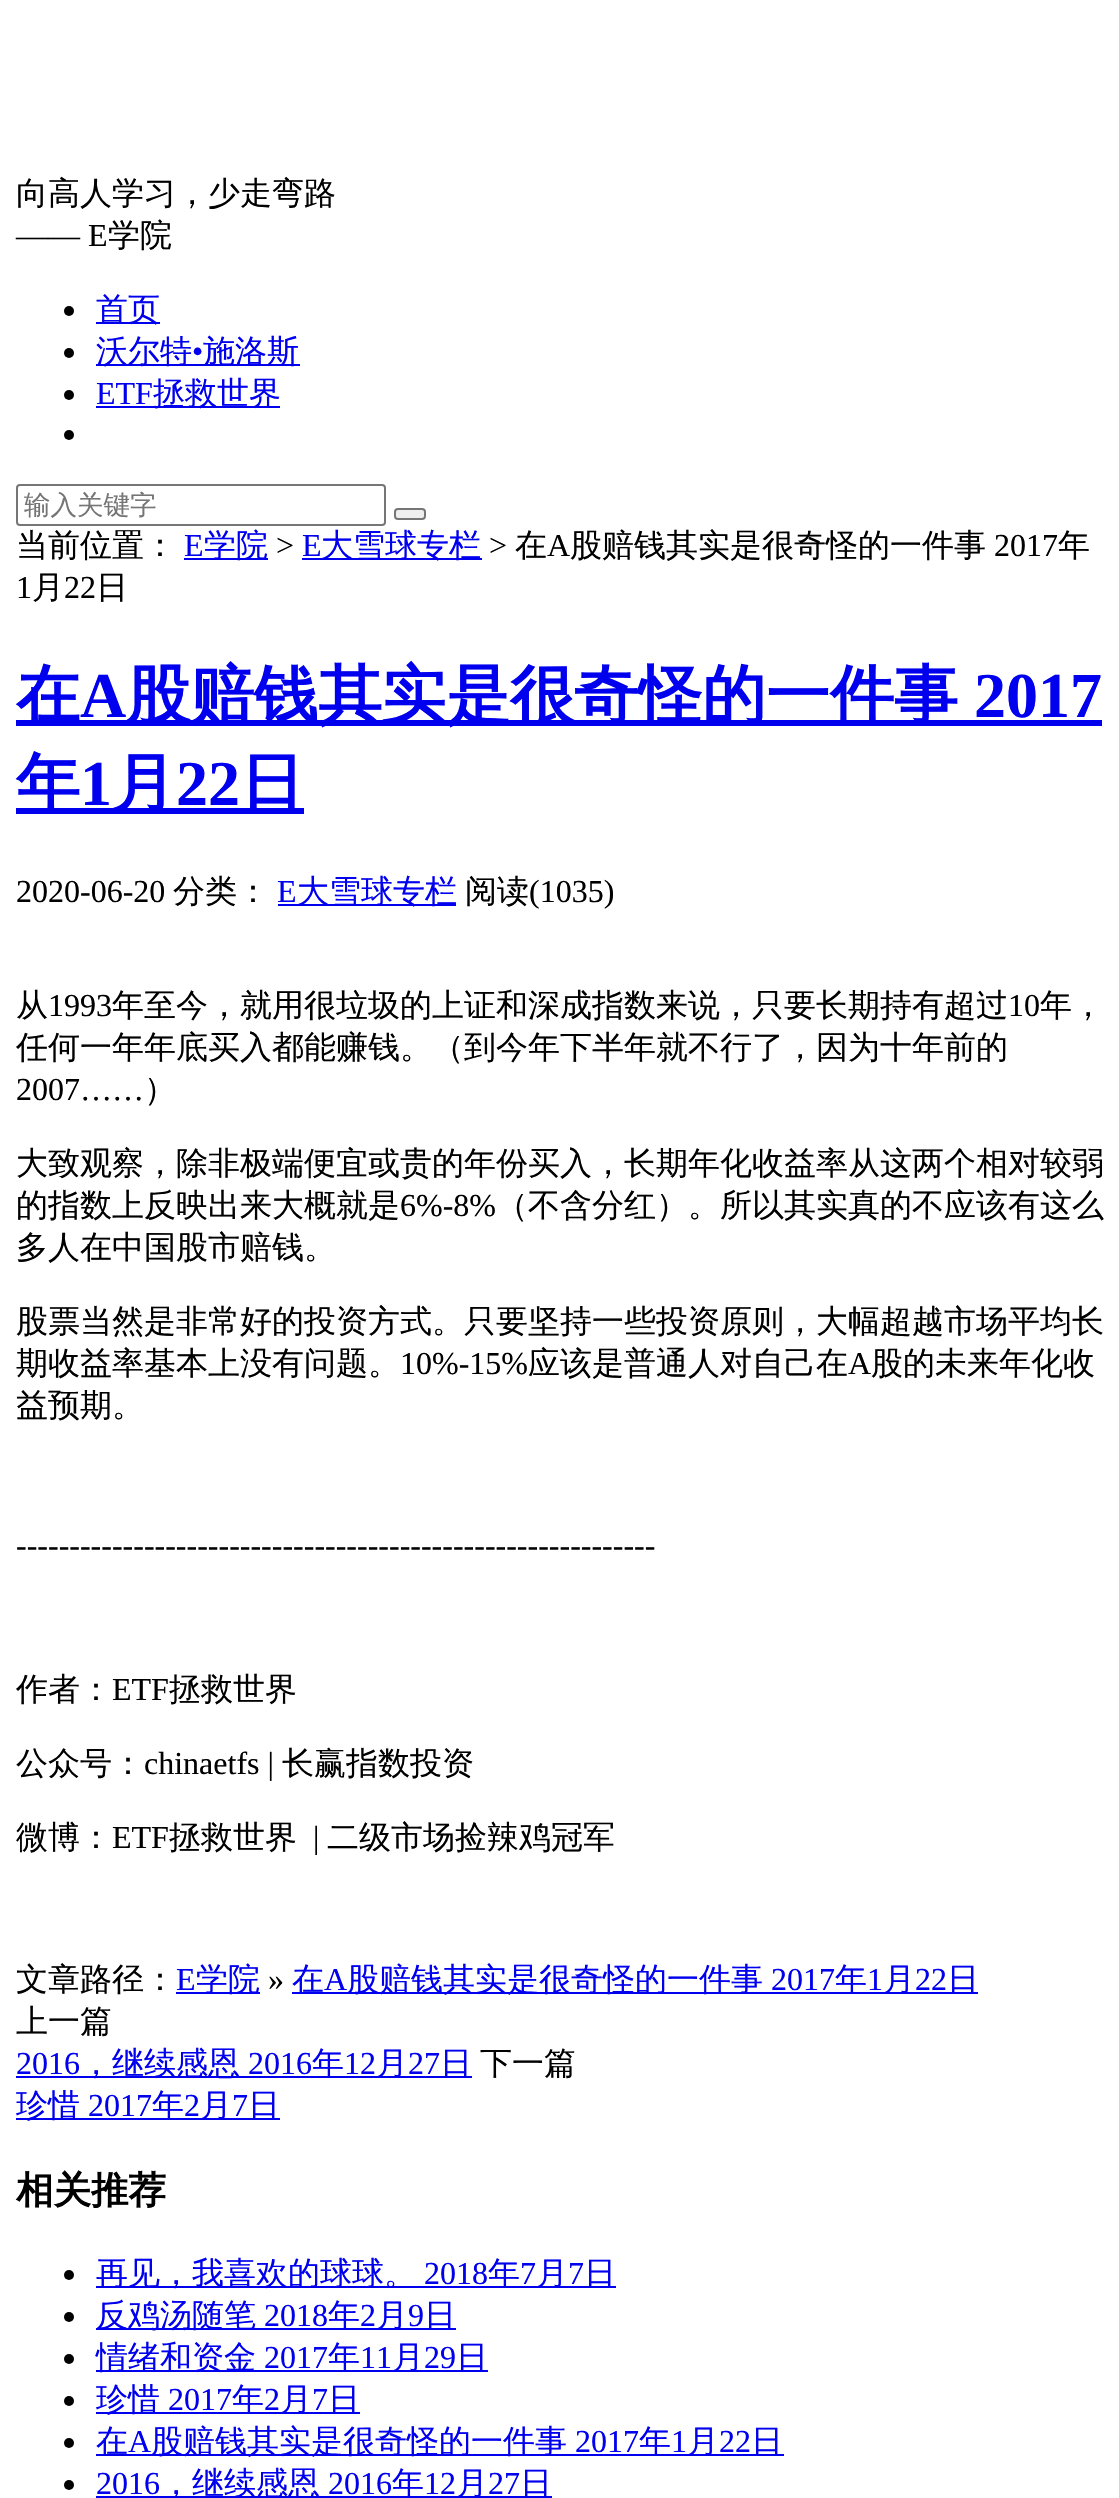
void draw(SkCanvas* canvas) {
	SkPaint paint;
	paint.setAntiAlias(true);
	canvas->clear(0xffffffff);
	SkFont f1(fontMgr->matchFamilyStyle("WenQuanYi Zen Hei", SkFontStyle(500, SkFontStyle::kNormal_Width, SkFontStyle::kUpright_Slant)), 32);
	f1.setSubpixel(true);
	paint.setColor(0xff000000);
	canvas->drawString("向高人学习，少走弯路", 16, 204, f1, paint);
	SkFont f2(fontMgr->matchFamilyStyle("Liberation Serif", SkFontStyle::Normal()), 32);
	f2.setSubpixel(true);
	canvas->drawString("—— E", 16, 246, f2, paint);
	canvas->drawString("学院", 108, 246, f1, paint);
	canvas->drawCircle(69, 311, 5, paint);
	paint.setColor(0xff0000ee);
	canvas->drawRect(SkRect::MakeXYWH(96, 322, 64, 2), paint);
	canvas->drawString("首页", 96, 320, f1, paint);
	paint.setColor(0xff000000);
	canvas->drawCircle(69, 353, 5, paint);
	paint.setColor(0xff0000ee);
	canvas->drawRect(SkRect::MakeXYWH(96, 364, 204, 2), paint);
	canvas->drawString("沃尔特", 96, 362, f1, paint);
	canvas->drawString("•", 192, 362, f2, paint);
	canvas->drawString("施洛斯", 203, 362, f1, paint);
	paint.setColor(0xff000000);
	canvas->drawCircle(69, 395, 5, paint);
	paint.setColor(0xff0000ee);
	canvas->drawString("ETF", 96, 404, f2, paint);
	canvas->drawRect(SkRect::MakeXYWH(96, 406, 184, 2), paint);
	canvas->drawString("拯救世界", 153, 404, f1, paint);
	paint.setColor(0xff000000);
	canvas->drawCircle(69, 435, 5, paint);
	paint.setStroke(true);
	paint.setStrokeWidth(2);
	paint.setColor(0xff767676);
	canvas->drawRoundRect(SkRect::MakeXYWH(17, 485, 368, 40), 3, 3, paint);
	SkFont f3(fontMgr->matchFamilyStyle("WenQuanYi Zen Hei", SkFontStyle(500, SkFontStyle::kNormal_Width, SkFontStyle::kUpright_Slant)), 26.5);
	f3.setSubpixel(true);
	paint.setStroke(false);
	paint.setColor(0xff757575);
	canvas->drawString("输入关键字", 24, 514, f3, paint);
	paint.setColor(0xffefefef);
	canvas->drawRoundRect(SkRect::MakeXYWH(395, 509, 30, 10), 3, 3, paint);
	paint.setStroke(true);
	paint.setColor(0xff767676);
	canvas->drawRoundRect(SkRect::MakeXYWH(395, 509, 30, 10), 3, 3, paint);
	paint.setStroke(false);
	paint.setColor(0xff000000);
	canvas->drawString("当前位置：", 16, 556, f1, paint);
	paint.setColor(0xff0000ee);
	canvas->drawString("E", 184, 556, f2, paint);
	canvas->drawRect(SkRect::MakeXYWH(184, 558, 84, 2), paint);
	canvas->drawString("学院", 204, 556, f1, paint);
	paint.setColor(0xff000000);
	canvas->drawString(">", 276, 556, f2, paint);
	paint.setColor(0xff0000ee);
	canvas->drawString("E", 302, 556, f2, paint);
	canvas->drawRect(SkRect::MakeXYWH(302, 558, 180, 2), paint);
	canvas->drawString("大雪球专栏", 321, 556, f1, paint);
	paint.setColor(0xff000000);
	canvas->drawString(">", 489, 556, f2, paint);
	canvas->drawString("在", 515, 556, f1, paint);
	canvas->drawString("A", 547, 556, f2, paint);
	canvas->drawString("股赔钱其实是很奇怪的一件事", 570, 556, f1, paint);
	canvas->drawString("2017", 994, 556, f2, paint);
	canvas->drawString("年", 1058, 556, f1, paint);
	canvas->drawString("1", 16, 598, f2, paint);
	canvas->drawString("月", 32, 598, f1, paint);
	canvas->drawString("22", 64, 598, f2, paint);
	canvas->drawString("日", 96, 598, f1, paint);
	paint.setColor(0xff0000ee);
	canvas->drawRect(SkRect::MakeXYWH(16, 720, 1086, 6), paint);
	SkFont f4(fontMgr->matchFamilyStyle("WenQuanYi Zen Hei", SkFontStyle::Bold()), 64);
	f4.setSubpixel(true);
	canvas->drawString("在", 16, 717, f4, paint);
	SkFont f5(fontMgr->matchFamilyStyle("Liberation Serif", SkFontStyle::Bold()), 64);
	f5.setSubpixel(true);
	canvas->drawString("A", 80, 717, f5, paint);
	canvas->drawString("股赔钱其实是很奇怪的一件事", 126, 717, f4, paint);
	canvas->drawString("2017", 974, 717, f5, paint);
	canvas->drawRect(SkRect::MakeXYWH(16, 808, 288, 6), paint);
	canvas->drawString("年", 16, 805, f4, paint);
	canvas->drawString("1", 80, 805, f5, paint);
	canvas->drawString("月", 112, 805, f4, paint);
	canvas->drawString("22", 176, 805, f5, paint);
	canvas->drawString("日", 240, 805, f4, paint);
	paint.setColor(0xff000000);
	canvas->drawString("2020-06-20", 16, 902, f2, paint);
	canvas->drawString("分类：", 173, 902, f1, paint);
	paint.setColor(0xff0000ee);
	canvas->drawString("E", 277, 902, f2, paint);
	canvas->drawRect(SkRect::MakeXYWH(278, 904, 178, 2), paint);
	canvas->drawString("大雪球专栏", 297, 902, f1, paint);
	paint.setColor(0xff000000);
	canvas->drawString("阅读", 465, 902, f1, paint);
	canvas->drawString("(1035)", 529, 902, f2, paint);
	canvas->drawString("从", 16, 1016, f1, paint);
	canvas->drawString("1993", 48, 1016, f2, paint);
	canvas->drawString("年至今，就用很垃圾的上证和深成指数来说，只要长期持有超过", 112, 1016, f1, paint);
	canvas->drawString("10", 1008, 1016, f2, paint);
	canvas->drawString("年，", 1040, 1016, f1, paint);
	canvas->drawString("任何一年年底买入都能赚钱。（到今年下半年就不行了，因为十年前的", 16, 1058, f1, paint);
	canvas->drawString("2007……", 16, 1100, f2, paint);
	canvas->drawString("）", 144, 1100, f1, paint);
	canvas->drawString("大致观察，除非极端便宜或贵的年份买入，长期年化收益率从这两个相对较弱", 16, 1174, f1, paint);
	canvas->drawString("的指数上反映出来大概就是", 16, 1216, f1, paint);
	canvas->drawString("6%-8%", 400, 1216, f2, paint);
	canvas->drawString("（不含分红）。所以其实真的不应该有这么", 496, 1216, f1, paint);
	canvas->drawString("多人在中国股市赔钱。", 16, 1258, f1, paint);
	canvas->drawString("股票当然是非常好的投资方式。只要坚持一些投资原则，大幅超越市场平均长", 16, 1332, f1, paint);
	canvas->drawString("期收益率基本上没有问题。", 16, 1374, f1, paint);
	canvas->drawString("10%-15%", 400, 1374, f2, paint);
	canvas->drawString("应该是普通人对自己在", 528, 1374, f1, paint);
	canvas->drawString("A", 848, 1374, f2, paint);
	canvas->drawString("股的未来年化收", 871, 1374, f1, paint);
	canvas->drawString("益预期。", 16, 1416, f1, paint);
	canvas->drawString("------------------------------------------------------------", 16, 1556, f2, paint);
	canvas->drawString("作者：", 16, 1700, f1, paint);
	canvas->drawString("ETF", 112, 1700, f2, paint);
	canvas->drawString("拯救世界", 169, 1700, f1, paint);
	canvas->drawString("公众号：", 16, 1774, f1, paint);
	canvas->drawString("chinaetfs |", 144, 1774, f2, paint);
	canvas->drawString("长赢指数投资", 282, 1774, f1, paint);
	canvas->drawString("微博：", 16, 1848, f1, paint);
	canvas->drawString("ETF", 112, 1848, f2, paint);
	canvas->drawString("拯救世界", 169, 1848, f1, paint);
	canvas->drawString("|", 313, 1848, f2, paint);
	canvas->drawString("二级市场捡辣鸡冠军", 327, 1848, f1, paint);
	canvas->drawString("文章路径：", 16, 1990, f1, paint);
	paint.setColor(0xff0000ee);
	canvas->drawString("E", 176, 1990, f2, paint);
	canvas->drawRect(SkRect::MakeXYWH(176, 1992, 84, 2), paint);
	canvas->drawString("学院", 196, 1990, f1, paint);
	paint.setColor(0xff000000);
	canvas->drawString("»", 268, 1990, f2, paint);
	paint.setColor(0xff0000ee);
	canvas->drawRect(SkRect::MakeXYWH(292, 1992, 686, 2), paint);
	canvas->drawString("在", 292, 1990, f1, paint);
	canvas->drawString("A", 324, 1990, f2, paint);
	canvas->drawString("股赔钱其实是很奇怪的一件事", 347, 1990, f1, paint);
	canvas->drawString("2017", 771, 1990, f2, paint);
	canvas->drawString("年", 835, 1990, f1, paint);
	canvas->drawString("1", 867, 1990, f2, paint);
	canvas->drawString("月", 883, 1990, f1, paint);
	canvas->drawString("22", 915, 1990, f2, paint);
	canvas->drawString("日", 947, 1990, f1, paint);
	paint.setColor(0xff000000);
	canvas->drawString("上一篇", 16, 2032, f1, paint);
	paint.setColor(0xff0000ee);
	canvas->drawString("2016", 16, 2074, f2, paint);
	canvas->drawRect(SkRect::MakeXYWH(16, 2076, 456, 2), paint);
	canvas->drawString("，继续感恩", 80, 2074, f1, paint);
	canvas->drawString("2016", 248, 2074, f2, paint);
	canvas->drawString("年", 312, 2074, f1, paint);
	canvas->drawString("12", 344, 2074, f2, paint);
	canvas->drawString("月", 376, 2074, f1, paint);
	canvas->drawString("27", 408, 2074, f2, paint);
	canvas->drawString("日", 440, 2074, f1, paint);
	paint.setColor(0xff000000);
	canvas->drawString("下一篇", 480, 2074, f1, paint);
	paint.setColor(0xff0000ee);
	canvas->drawRect(SkRect::MakeXYWH(16, 2118, 264, 2), paint);
	canvas->drawString("珍惜", 16, 2116, f1, paint);
	canvas->drawString("2017", 88, 2116, f2, paint);
	canvas->drawString("年", 152, 2116, f1, paint);
	canvas->drawString("2", 184, 2116, f2, paint);
	canvas->drawString("月", 200, 2116, f1, paint);
	canvas->drawString("7", 232, 2116, f2, paint);
	canvas->drawString("日", 248, 2116, f1, paint);
	SkFont f6(fontMgr->matchFamilyStyle("WenQuanYi Zen Hei", SkFontStyle::Bold()), 37.5);
	f6.setSubpixel(true);
	paint.setColor(0xff000000);
	canvas->drawString("相关推荐", 16, 2203, f6, paint);
	canvas->drawCircle(69, 2275, 5, paint);
	paint.setColor(0xff0000ee);
	canvas->drawRect(SkRect::MakeXYWH(96, 2286, 520, 2), paint);
	canvas->drawString("再见，我喜欢的球球。", 96, 2284, f1, paint);
	canvas->drawString("2018", 424, 2284, f2, paint);
	canvas->drawString("年", 488, 2284, f1, paint);
	canvas->drawString("7", 520, 2284, f2, paint);
	canvas->drawString("月", 536, 2284, f1, paint);
	canvas->drawString("7", 568, 2284, f2, paint);
	canvas->drawString("日", 584, 2284, f1, paint);
	paint.setColor(0xff000000);
	canvas->drawCircle(69, 2317, 5, paint);
	paint.setColor(0xff0000ee);
	canvas->drawRect(SkRect::MakeXYWH(96, 2328, 360, 2), paint);
	canvas->drawString("反鸡汤随笔", 96, 2326, f1, paint);
	canvas->drawString("2018", 264, 2326, f2, paint);
	canvas->drawString("年", 328, 2326, f1, paint);
	canvas->drawString("2", 360, 2326, f2, paint);
	canvas->drawString("月", 376, 2326, f1, paint);
	canvas->drawString("9", 408, 2326, f2, paint);
	canvas->drawString("日", 424, 2326, f1, paint);
	paint.setColor(0xff000000);
	canvas->drawCircle(69, 2359, 5, paint);
	paint.setColor(0xff0000ee);
	canvas->drawRect(SkRect::MakeXYWH(96, 2370, 392, 2), paint);
	canvas->drawString("情绪和资金", 96, 2368, f1, paint);
	canvas->drawString("2017", 264, 2368, f2, paint);
	canvas->drawString("年", 328, 2368, f1, paint);
	canvas->drawString("11", 360, 2368, f2, paint);
	canvas->drawString("月", 392, 2368, f1, paint);
	canvas->drawString("29", 424, 2368, f2, paint);
	canvas->drawString("日", 456, 2368, f1, paint);
	paint.setColor(0xff000000);
	canvas->drawCircle(69, 2401, 5, paint);
	paint.setColor(0xff0000ee);
	canvas->drawRect(SkRect::MakeXYWH(96, 2412, 264, 2), paint);
	canvas->drawString("珍惜", 96, 2410, f1, paint);
	canvas->drawString("2017", 168, 2410, f2, paint);
	canvas->drawString("年", 232, 2410, f1, paint);
	canvas->drawString("2", 264, 2410, f2, paint);
	canvas->drawString("月", 280, 2410, f1, paint);
	canvas->drawString("7", 312, 2410, f2, paint);
	canvas->drawString("日", 328, 2410, f1, paint);
	paint.setColor(0xff000000);
	canvas->drawCircle(69, 2443, 5, paint);
	paint.setColor(0xff0000ee);
	canvas->drawRect(SkRect::MakeXYWH(96, 2454, 688, 2), paint);
	canvas->drawString("在", 96, 2452, f1, paint);
	canvas->drawString("A", 128, 2452, f2, paint);
	canvas->drawString("股赔钱其实是很奇怪的一件事", 151, 2452, f1, paint);
	canvas->drawString("2017", 575, 2452, f2, paint);
	canvas->drawString("年", 639, 2452, f1, paint);
	canvas->drawString("1", 671, 2452, f2, paint);
	canvas->drawString("月", 687, 2452, f1, paint);
	canvas->drawString("22", 719, 2452, f2, paint);
	canvas->drawString("日", 751, 2452, f1, paint);
	paint.setColor(0xff000000);
	canvas->drawCircle(69, 2485, 5, paint);
	paint.setColor(0xff0000ee);
	canvas->drawString("2016", 96, 2494, f2, paint);
	canvas->drawRect(SkRect::MakeXYWH(96, 2496, 456, 2), paint);
	canvas->drawString("，继续感恩", 160, 2494, f1, paint);
	canvas->drawString("2016", 328, 2494, f2, paint);
	canvas->drawString("年", 392, 2494, f1, paint);
	canvas->drawString("12", 424, 2494, f2, paint);
	canvas->drawString("月", 456, 2494, f1, paint);
	canvas->drawString("27", 488, 2494, f2, paint);
	canvas->drawString("日", 520, 2494, f1, paint);
}
